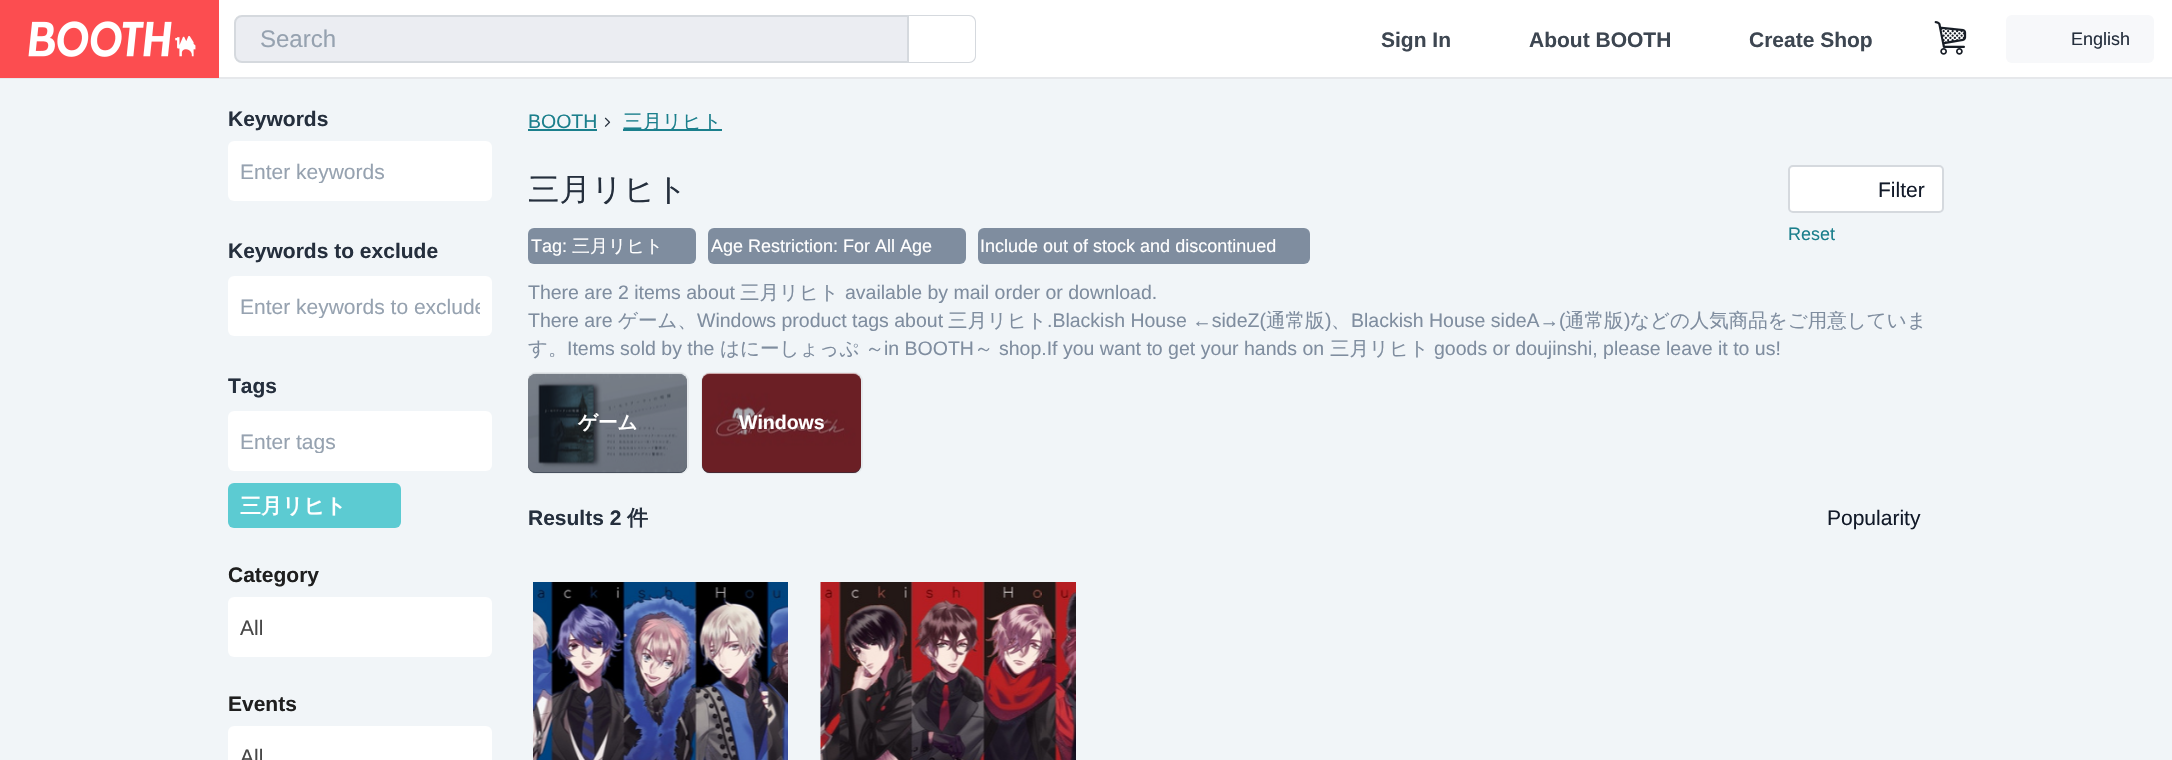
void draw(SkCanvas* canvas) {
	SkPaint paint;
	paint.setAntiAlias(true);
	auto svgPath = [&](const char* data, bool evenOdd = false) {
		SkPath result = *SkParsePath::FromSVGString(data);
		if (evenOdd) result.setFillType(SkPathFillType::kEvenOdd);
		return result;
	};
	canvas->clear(0xffffffff);
	paint.setColor(0xffe6e8eb);
	canvas->drawRect(SkRect::MakeXYWH(0, 77, 2172, 2), paint);
	canvas->drawImageRect(SkImages::DeferredFromEncodedData(SkData::MakeFromFileName("img1.png")), SkRect::MakeXYWH(0, 0, 219, 78), SkSamplingOptions());
	paint.setColor(0xffebedf2);
	canvas->drawPath(svgPath("M242 16H908V62H242C238 62 235 59 235 55V23C235 19 238 16 242 16Z"), paint);
	paint.setStroke(true);
	paint.setStrokeWidth(2);
	paint.setColor(0xffd5d9de);
	canvas->drawPath(svgPath("M242 16H908V62H242C238 62 235 59 235 55V23C235 19 238 16 242 16Z"), paint);
	SkFont f1(fontMgr->matchFamilyStyle("Liberation Sans", SkFontStyle::Normal()), 24);
	f1.setSubpixel(true);
	paint.setStroke(false);
	paint.setColor(0xff96a2b0);
	canvas->drawString("Search", 260, 47, f1, paint);
	paint.setColor(0xffd5d9de);
	canvas->drawPath(svgPath("M909 15H969C973 15 976 18 976 22V56C976 60 973 63 969 63H909ZM909 16H969C972 16 975 19 975 22V56C975 59 972 62 969 62H909Z", true), paint);
	SkFont f2(fontMgr->matchFamilyStyle("Liberation Sans", SkFontStyle::Bold()), 21);
	f2.setSubpixel(true);
	paint.setColor(0xff3d4651);
	canvas->drawString("Sign In", 1381, 47, f2, paint);
	canvas->drawString("About BOOTH", 1529, 47, f2, paint);
	canvas->drawString("Create Shop", 1749, 47, f2, paint);
	canvas->drawImageRect(SkImages::DeferredFromEncodedData(SkData::MakeFromFileName("img2.png")), SkRect::MakeXYWH(1934, 21, 33, 34), SkSamplingOptions());
	paint.setColor(0xfff7f8fa);
	canvas->drawRoundRect(SkRect::MakeXYWH(2006, 15, 148, 48), 6, 6, paint);
	SkFont f3(fontMgr->matchFamilyStyle("Liberation Sans", SkFontStyle::Normal()), 18);
	f3.setSubpixel(true);
	paint.setColor(0xff252f3d);
	canvas->drawString("English", 2071, 45, f3, paint);
	paint.setColor(0xfff1f5f8);
	canvas->drawRect(SkRect::MakeXYWH(0, 79, 2172, 681), paint);
	paint.setColor(0xff252f3d);
	canvas->drawString("Keywords", 228, 126, f2, paint);
	paint.setColor(0xffffffff);
	canvas->drawRoundRect(SkRect::MakeXYWH(228, 141, 264, 60), 6, 6, paint);
	canvas->save();
	canvas->clipRect(SkRect::MakeXYWH(240, 159, 240, 24));
	SkFont f4(fontMgr->matchFamilyStyle("Liberation Sans", SkFontStyle::Normal()), 21);
	f4.setSubpixel(true);
	paint.setColor(0xff96a2b0);
	canvas->drawString("Enter keywords", 240, 179, f4, paint);
	canvas->restore();
	paint.setColor(0xff252f3d);
	canvas->drawString("Keywords to exclude", 228, 258, f2, paint);
	paint.setColor(0xffffffff);
	canvas->drawRoundRect(SkRect::MakeXYWH(228, 276, 264, 60), 6, 6, paint);
	canvas->save();
	canvas->clipRect(SkRect::MakeXYWH(240, 294, 240, 24));
	paint.setColor(0xff96a2b0);
	canvas->drawString("Enter keywords to exclude", 240, 314, f4, paint);
	canvas->restore();
	paint.setColor(0xff252f3d);
	canvas->drawString("Tags", 228, 393, f2, paint);
	paint.setColor(0xffffffff);
	canvas->drawRoundRect(SkRect::MakeXYWH(228, 411, 264, 60), 6, 6, paint);
	canvas->save();
	canvas->clipRect(SkRect::MakeXYWH(240, 429, 240, 24));
	paint.setColor(0xff96a2b0);
	canvas->drawString("Enter tags", 240, 449, f4, paint);
	canvas->restore();
	paint.setColor(0xff5ccbd2);
	canvas->drawRoundRect(SkRect::MakeXYWH(228, 483, 173, 45), 6, 6, paint);
	SkFont f5(fontMgr->matchFamilyStyle("WenQuanYi Zen Hei", SkFontStyle::Bold()), 21);
	f5.setSubpixel(true);
	paint.setColor(0xffffffff);
	canvas->drawString("三月リヒト", 240, 513, f5, paint);
	paint.setColor(0xff1f1f1f);
	canvas->drawString("Category", 228, 582, f2, paint);
	paint.setColor(0xffffffff);
	canvas->drawRoundRect(SkRect::MakeXYWH(228, 597, 264, 60), 6, 6, paint);
	paint.setColor(0xff474747);
	canvas->drawString("All", 240, 635, f4, paint);
	paint.setColor(0xff1f1f1f);
	canvas->drawString("Events", 228, 711, f2, paint);
	paint.setColor(0xffffffff);
	canvas->drawRoundRect(SkRect::MakeXYWH(228, 726, 264, 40), 6, 6, paint);
	paint.setColor(0xff474747);
	canvas->drawString("All", 240, 764, f4, paint);
	SkFont f6(fontMgr->matchFamilyStyle("Liberation Sans", SkFontStyle::Normal()), 19.5);
	f6.setSubpixel(true);
	paint.setColor(0xff1b7f8c);
	canvas->drawString("BOOTH", 528, 128, f6, paint);
	canvas->drawRect(SkRect::MakeXYWH(528, 129, 69, 2), paint);
	canvas->drawImageRect(SkImages::DeferredFromEncodedData(SkData::MakeFromFileName("img3.png")), SkRect::MakeXYWH(604, 117, 7, 10), SkSamplingOptions());
	canvas->drawRect(SkRect::MakeXYWH(623, 129, 99, 2), paint);
	SkFont f7(fontMgr->matchFamilyStyle("WenQuanYi Zen Hei", SkFontStyle(500, SkFontStyle::kNormal_Width, SkFontStyle::kUpright_Slant)), 19.5);
	f7.setSubpixel(true);
	canvas->drawString("三月リヒト", 623, 128, f7, paint);
	SkFont f8(fontMgr->matchFamilyStyle("WenQuanYi Zen Hei", SkFontStyle(500, SkFontStyle::kNormal_Width, SkFontStyle::kUpright_Slant)), 31.5);
	f8.setSubpixel(true);
	paint.setColor(0xff252f3d);
	canvas->drawString("三月リヒト", 528, 200, f8, paint);
	paint.setColor(0xffffffff);
	canvas->drawRoundRect(SkRect::MakeXYWH(1789, 166, 154, 46), 4, 4, paint);
	paint.setStroke(true);
	paint.setColor(0xffd5d9de);
	canvas->drawRoundRect(SkRect::MakeXYWH(1789, 166, 154, 46), 4, 4, paint);
	paint.setStroke(false);
	paint.setColor(0xff121a29);
	canvas->drawString("Filter", 1878, 197, f4, paint);
	paint.setColor(0xff1b7f8c);
	canvas->drawString("Reset", 1788, 240, f3, paint);
	paint.setColor(0xff7f8d9f);
	canvas->drawRoundRect(SkRect::MakeXYWH(528, 228, 168, 36), 6, 6, paint);
	paint.setColor(0xffffffff);
	canvas->drawString("Tag:", 531, 252, f3, paint);
	SkFont f9(fontMgr->matchFamilyStyle("WenQuanYi Zen Hei", SkFontStyle(500, SkFontStyle::kNormal_Width, SkFontStyle::kUpright_Slant)), 18);
	f9.setSubpixel(true);
	canvas->drawString("三月リヒト", 572, 252, f9, paint);
	paint.setColor(0xff7f8d9f);
	canvas->drawRoundRect(SkRect::MakeXYWH(708, 228, 258, 36), 6, 6, paint);
	paint.setColor(0xffffffff);
	canvas->drawString("Age Restriction: For All Age", 711, 252, f3, paint);
	paint.setColor(0xff7f8d9f);
	canvas->drawRoundRect(SkRect::MakeXYWH(978, 228, 332, 36), 6, 6, paint);
	paint.setColor(0xffffffff);
	canvas->drawString("Include out of stock and discontinued", 980, 252, f3, paint);
	paint.setColor(0xff7f8d9f);
	canvas->drawString("There are 2 items about", 528, 299, f6, paint);
	canvas->drawString("三月リヒト", 740, 299, f7, paint);
	canvas->drawString("available by mail order or download.", 845, 299, f6, paint);
	canvas->drawString("There are", 528, 327, f6, paint);
	canvas->drawString("ゲーム、", 618, 327, f7, paint);
	canvas->drawString("Windows product tags about", 697, 327, f6, paint);
	canvas->drawString("三月リヒト", 948, 327, f7, paint);
	canvas->drawString(".Blackish House ←sideZ(", 1047, 327, f6, paint);
	canvas->drawString("通常版", 1266, 327, f7, paint);
	canvas->drawString(")", 1325, 327, f6, paint);
	canvas->drawString("、", 1331, 327, f7, paint);
	canvas->drawString("Blackish House sideA→(", 1351, 327, f6, paint);
	canvas->drawString("通常版", 1565, 327, f7, paint);
	canvas->drawString(")", 1624, 327, f6, paint);
	canvas->drawString("などの人気商品をご用意していま", 1630, 327, f7, paint);
	canvas->drawString("す。", 528, 355, f7, paint);
	canvas->drawString("Items sold by the", 567, 355, f6, paint);
	canvas->drawString("はにーしょっぷ", 720, 355, f7, paint);
	canvas->drawString("～", 865, 355, f7, paint);
	canvas->drawString("in BOOTH", 884, 355, f6, paint);
	canvas->drawString("～", 974, 355, f7, paint);
	canvas->drawString("shop.If you want to get your hands on", 999, 355, f6, paint);
	canvas->drawString("三月リヒト", 1330, 355, f7, paint);
	canvas->drawString("goods or doujinshi, please leave it to us!", 1434, 355, f6, paint);
	canvas->save();
	canvas->clipRect(SkRect::MakeXYWH(528, 365, 1416, 117));
	paint.setStroke(true);
	paint.setColor(0xffe5e9ec);
	canvas->drawRoundRect(SkRect::MakeXYWH(528, 373, 160, 100), 8, 8, paint);
	canvas->restore();
	paint.setStroke(false);
	paint.setColor(0xff252f3d);
	canvas->drawRoundRect(SkRect::MakeXYWH(528, 374, 159, 99), 8, 8, paint);
	paint.setColor(0x99252f3d);
	canvas->drawRoundRect(SkRect::MakeXYWH(528, 374, 159, 99), 8, 8, paint);
	canvas->drawImageRect(SkImages::DeferredFromEncodedData(SkData::MakeFromFileName("img4.png")), SkRect::MakeXYWH(528, 373, 159, 100), SkSamplingOptions());
	SkFont f10(fontMgr->matchFamilyStyle("WenQuanYi Zen Hei", SkFontStyle::Bold()), 19.5);
	f10.setSubpixel(true);
	paint.setColor(0xffffffff);
	canvas->drawString("ゲーム", 578, 429, f10, paint);
	paint.setStroke(true);
	paint.setColor(0xffe5e9ec);
	canvas->drawRoundRect(SkRect::MakeXYWH(702, 373, 160, 100), 8, 8, paint);
	paint.setStroke(false);
	paint.setColor(0xff252f3d);
	canvas->drawRoundRect(SkRect::MakeXYWH(702, 374, 159, 99), 8, 8, paint);
	paint.setColor(0x99252f3d);
	canvas->drawRoundRect(SkRect::MakeXYWH(702, 374, 159, 99), 8, 8, paint);
	canvas->drawImageRect(SkImages::DeferredFromEncodedData(SkData::MakeFromFileName("img5.png")), SkRect::MakeXYWH(702, 373, 159, 100), SkSamplingOptions());
	SkFont f11(fontMgr->matchFamilyStyle("Liberation Sans", SkFontStyle::Bold()), 19.5);
	f11.setSubpixel(true);
	paint.setColor(0xffffffff);
	canvas->drawString("Windows", 739, 429, f11, paint);
	paint.setColor(0xff252f3d);
	canvas->drawString("Results 2", 528, 525, f2, paint);
	canvas->drawString("件", 627, 525, f5, paint);
	paint.setColor(0xff121a29);
	canvas->drawString("Popularity", 1827, 525, f4, paint);
	canvas->drawImageRect(SkImages::DeferredFromEncodedData(SkData::MakeFromFileName("img6.png")), SkRect::MakeXYWH(533, 582, 255, 178), SkSamplingOptions());
	canvas->drawImageRect(SkImages::DeferredFromEncodedData(SkData::MakeFromFileName("img7.png")), SkRect::MakeXYWH(820, 582, 256, 178), SkSamplingOptions());
}
